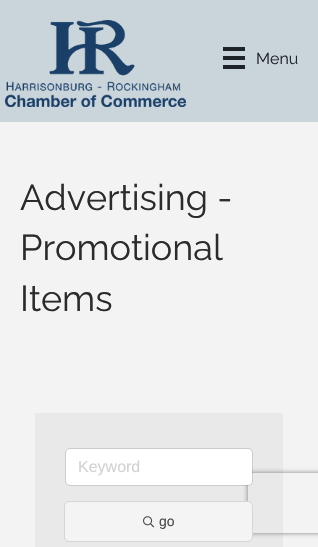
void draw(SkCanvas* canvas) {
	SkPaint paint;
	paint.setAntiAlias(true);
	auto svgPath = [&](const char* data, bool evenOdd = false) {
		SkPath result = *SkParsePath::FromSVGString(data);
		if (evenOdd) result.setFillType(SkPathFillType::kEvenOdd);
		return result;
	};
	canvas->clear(0xffc9d5db);
	canvas->drawImageRect(SkImages::DeferredFromEncodedData(SkData::MakeFromFileName("img1.png")), SkRect::MakeXYWH(5, 20, 181, 87), SkSamplingOptions());
	paint.setColor(0xff1e2428);
	canvas->drawRect(SkRect::MakeXYWH(223, 47, 22, 4), paint);
	canvas->drawRect(SkRect::MakeXYWH(223, 56, 22, 4), paint);
	canvas->drawRect(SkRect::MakeXYWH(223, 65, 22, 4), paint);
	SkFont f1(fontMgr->matchFamilyStyle("Raleway", SkFontStyle::Normal()), 16);
	f1.setSubpixel(true);
	canvas->drawString("Menu", 256, 64, f1, paint);
	paint.setColor(0xfff3f3f3);
	canvas->drawRect(SkRect::MakeXYWH(0, 122, 318, 425), paint);
	SkFont f2(fontMgr->matchFamilyStyle("Raleway", SkFontStyle::Normal()), 36);
	f2.setSubpixel(true);
	paint.setColor(0xff2b2b2b);
	canvas->drawString("Advertising -", 20, 210, f2, paint);
	canvas->drawString("Promotional", 20, 260, f2, paint);
	canvas->drawString("Items", 20, 311, f2, paint);
	paint.setColor(0xffe9e9e9);
	canvas->drawRect(SkRect::MakeXYWH(35, 413, 248, 134), paint);
	canvas->save();
	canvas->clipPath(svgPath("M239 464H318V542H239ZM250 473H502C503 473 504 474 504 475V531C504 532 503 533 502 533H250C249 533 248 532 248 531V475C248 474 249 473 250 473Z", true), true);
	paint.setColor(0xff808080);
	paint.setMaskFilter(SkMaskFilter::MakeBlur(kNormal_SkBlurStyle, 2.5));
	canvas->drawRoundRect(SkRect::MakeXYWH(248, 473, 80, 60), 2, 2, paint);
	paint.setMaskFilter(nullptr);
	canvas->restore();
	paint.setColor(0xffffffff);
	canvas->drawRoundRect(SkRect::MakeXYWH(66, 449, 186, 36), 4, 4, paint);
	paint.setStroke(true);
	paint.setStrokeWidth(1);
	paint.setColor(0x1f000000);
	canvas->drawRoundRect(SkRect::MakeXYWH(65.5, 448.5, 187, 37), 4.5, 4.5, paint);
	SkFont f3(fontMgr->matchFamilyStyle("Liberation Sans", SkFontStyle::Normal()), 16);
	f3.setSubpixel(true);
	paint.setStroke(false);
	paint.setColor(0xffd2d2d2);
	canvas->drawString("Keyword", 78, 472, f3, paint);
	paint.setColor(0xfff4f4f4);
	canvas->drawRoundRect(SkRect::MakeXYWH(64, 501, 189, 41), 5, 5, paint);
	paint.setStroke(true);
	paint.setColor(0x1f000000);
	canvas->drawRoundRect(SkRect::MakeXYWH(64.5, 501.5, 188, 40), 4.5, 4.5, paint);
	canvas->drawImageRect(SkImages::DeferredFromEncodedData(SkData::MakeFromFileName("img2.png")), SkRect::MakeXYWH(143, 516, 12, 12), SkSamplingOptions());
	SkFont f4(fontMgr->matchFamilyStyle("Liberation Sans", SkFontStyle::Normal()), 14);
	f4.setSubpixel(true);
	paint.setStroke(false);
	paint.setColor(0xff4a4a4a);
	canvas->drawString("go", 159, 526, f4, paint);
}
